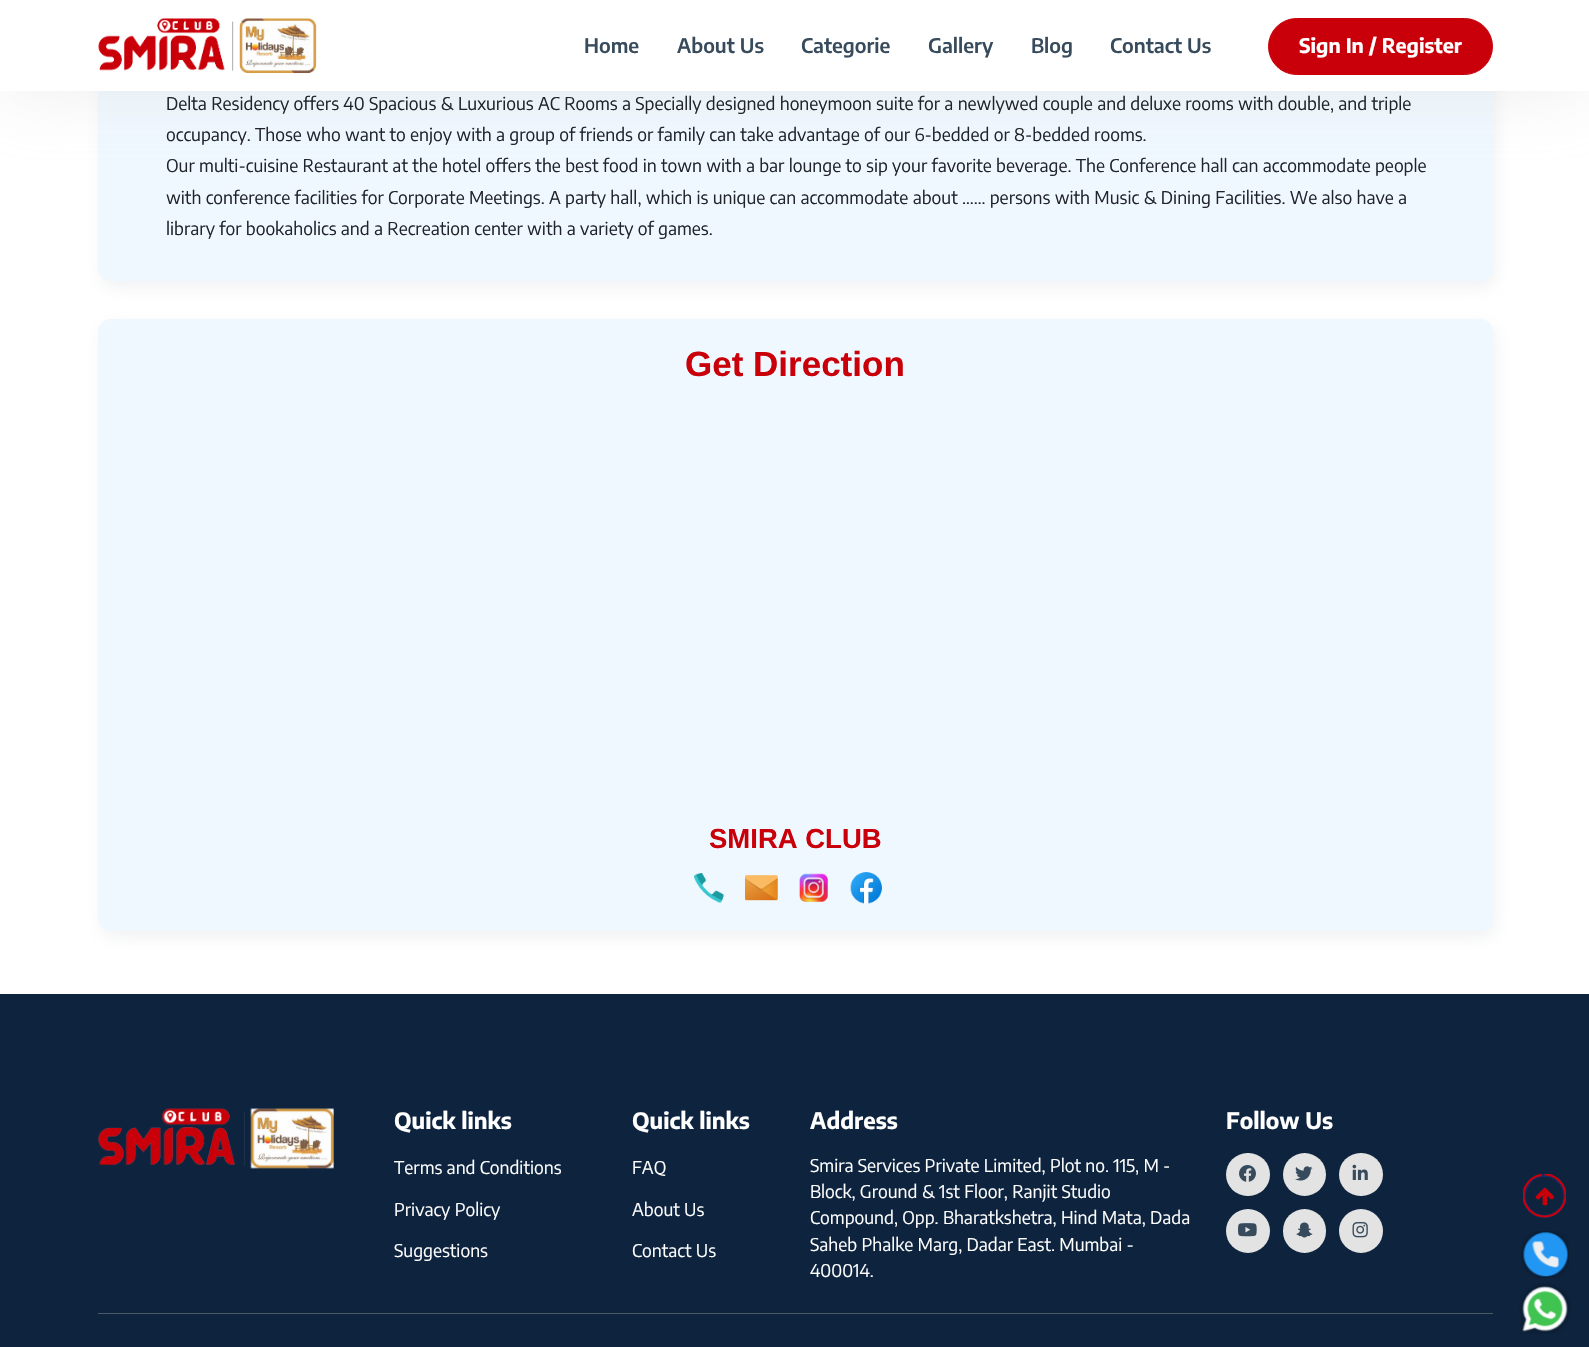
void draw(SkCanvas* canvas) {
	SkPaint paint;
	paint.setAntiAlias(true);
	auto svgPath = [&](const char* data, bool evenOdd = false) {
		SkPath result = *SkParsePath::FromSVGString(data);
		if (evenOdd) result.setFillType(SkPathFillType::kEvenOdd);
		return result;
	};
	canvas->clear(0xffffffff);
	paint.setColor(0x70dee2e7);
	paint.setMaskFilter(SkMaskFilter::MakeBlur(kNormal_SkBlurStyle, 8));
	canvas->drawRoundRect(SkRect::MakeXYWH(101, -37, 1395, 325), 13, 13, paint);
	paint.setMaskFilter(nullptr);
	paint.setColor(0xfff0f8ff);
	canvas->drawRoundRect(SkRect::MakeXYWH(98, -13, 1395, 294), 13, 13, paint);
	paint.setColor(0x45c5c5c5);
	paint.setMaskFilter(SkMaskFilter::MakeBlur(kNormal_SkBlurStyle, 33));
	canvas->drawRect(SkRect::MakeXYWH(0, 4, 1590, 91), paint);
	paint.setMaskFilter(nullptr);
	paint.setColor(0xffffffff);
	canvas->drawRect(SkRect::MakeXYWH(0, 0, 1589, 91), paint);
	canvas->drawImageRect(SkImages::DeferredFromEncodedData(SkData::MakeFromFileName("img1.png")), SkRect::MakeXYWH(98, 18, 219, 56), SkSamplingOptions());
	SkFont f1(fontMgr->matchFamilyStyle("Encode Sans Condensed", SkFontStyle(600, SkFontStyle::kNormal_Width, SkFontStyle::kUpright_Slant)), 20);
	f1.setSubpixel(true);
	paint.setColor(0xff374b5c);
	canvas->drawString("Home", 584, 53, f1, paint);
	canvas->drawString("About Us", 677, 53, f1, paint);
	canvas->drawString("Categorie", 801, 53, f1, paint);
	canvas->drawString("Gallery", 928, 53, f1, paint);
	canvas->drawString("Blog", 1031, 53, f1, paint);
	canvas->drawString("Contact Us", 1110, 53, f1, paint);
	paint.setColor(0xffc90009);
	canvas->drawRoundRect(SkRect::MakeXYWH(1268.5, 18.5, 224, 56), 28, 28, paint);
	paint.setStroke(true);
	paint.setStrokeWidth(1);
	canvas->drawRoundRect(SkRect::MakeXYWH(1268.5, 18.5, 224, 56), 28, 28, paint);
	SkFont f2(fontMgr->matchFamilyStyle("Encode Sans Condensed", SkFontStyle::Bold()), 20);
	f2.setSubpixel(true);
	paint.setStroke(false);
	paint.setColor(0xffffffff);
	canvas->drawString("Sign In / Register", 1299, 53, f2, paint);
	SkFont f3(fontMgr->matchFamilyStyle("Encode Sans Condensed", SkFontStyle::Normal()), 17.5);
	f3.setSubpixel(true);
	paint.setColor(0xff212529);
	canvas->drawString("Delta Residency offers 40 Spacious & Luxurious AC Rooms a Specially designed honeymoon suite for a newlywed couple and deluxe rooms with double, and triple", 166, 110, f3, paint);
	canvas->drawString("occupancy. Those who want to enjoy with a group of friends or family can take advantage of our 6-bedded or 8-bedded rooms.", 166, 141, f3, paint);
	canvas->drawString("Our multi-cuisine Restaurant at the hotel offers the best food in town with a bar lounge to sip your favorite beverage. The Conference hall can accommodate people", 166, 172, f3, paint);
	canvas->drawString("with conference facilities for Corporate Meetings. A party hall, which is unique can accommodate about …… persons with Music & Dining Facilities. We also have a", 166, 204, f3, paint);
	canvas->drawString("library for bookaholics and a Recreation center with a variety of games.", 166, 235, f3, paint);
	paint.setColor(0x70dee2e7);
	paint.setMaskFilter(SkMaskFilter::MakeBlur(kNormal_SkBlurStyle, 8));
	canvas->drawRoundRect(SkRect::MakeXYWH(101, 325, 1395, 613), 13, 13, paint);
	paint.setMaskFilter(nullptr);
	paint.setColor(0xfff0f8ff);
	canvas->drawRoundRect(SkRect::MakeXYWH(98, 319, 1395, 612), 13, 13, paint);
	SkFont f4(fontMgr->matchFamilyStyle("Liberation Sans", SkFontStyle::Bold()), 35);
	f4.setSubpixel(true);
	paint.setColor(0xffc90009);
	canvas->drawString("Get Direction", 685, 376, f4, paint);
	SkFont f5(fontMgr->matchFamilyStyle("Liberation Sans", SkFontStyle::Bold()), 27.5);
	f5.setSubpixel(true);
	canvas->drawString("SMIRA CLUB", 709, 848, f5, paint);
	canvas->drawImageRect(SkImages::DeferredFromEncodedData(SkData::MakeFromFileName("img2.png")), SkRect::MakeXYWH(694, 873, 30, 30), SkSamplingOptions());
	canvas->drawImageRect(SkImages::DeferredFromEncodedData(SkData::MakeFromFileName("img3.png")), SkRect::MakeXYWH(745, 875, 33, 26), SkSamplingOptions());
	canvas->drawImageRect(SkImages::DeferredFromEncodedData(SkData::MakeFromFileName("img4.png")), SkRect::MakeXYWH(799, 873, 29, 29), SkSamplingOptions());
	canvas->drawImageRect(SkImages::DeferredFromEncodedData(SkData::MakeFromFileName("img5.png")), SkRect::MakeXYWH(850, 872, 32, 32), SkSamplingOptions());
	paint.setColor(0xff0d233e);
	canvas->drawRect(SkRect::MakeXYWH(0, 994, 1589, 353), paint);
	paint.setColor(0xff4b5a64);
	canvas->drawRect(SkRect::MakeXYWH(98, 1313, 1395, 1), paint);
	canvas->drawImageRect(SkImages::DeferredFromEncodedData(SkData::MakeFromFileName("img6.png")), SkRect::MakeXYWH(98, 1108, 236, 61), SkSamplingOptions());
	SkFont f6(fontMgr->matchFamilyStyle("Encode Sans Condensed", SkFontStyle::Bold()), 22.5);
	f6.setSubpixel(true);
	paint.setColor(0xffffffff);
	canvas->drawString("Quick links", 394, 1129, f6, paint);
	canvas->drawString("Terms and Conditions", 394, 1174, f3, paint);
	canvas->drawString("Privacy Policy", 394, 1216, f3, paint);
	canvas->drawString("Suggestions", 394, 1257, f3, paint);
	canvas->drawString("Quick links", 632, 1129, f6, paint);
	canvas->drawString("FAQ", 632, 1174, f3, paint);
	canvas->drawString("About Us", 632, 1216, f3, paint);
	canvas->drawString("Contact Us", 632, 1257, f3, paint);
	canvas->drawString("Address", 810, 1129, f6, paint);
	canvas->drawString("Smira Services Private Limited, Plot no. 115, M -", 810, 1172, f3, paint);
	canvas->drawString("Block, Ground & 1st Floor, Ranjit Studio", 810, 1198, f3, paint);
	canvas->drawString("Compound, Opp. Bharatkshetra, Hind Mata, Dada", 810, 1224, f3, paint);
	canvas->drawString("Saheb Phalke Marg, Dadar East. Mumbai -", 810, 1251, f3, paint);
	canvas->drawString("400014.", 810, 1277, f3, paint);
	canvas->drawString("Follow Us", 1226, 1129, f6, paint);
	paint.setColor(0xffe3e3e3);
	canvas->drawRoundRect(SkRect::MakeXYWH(1226, 1153, 44, 43), 21.5, 21.5, paint);
	canvas->drawImageRect(SkImages::DeferredFromEncodedData(SkData::MakeFromFileName("img7.png")), SkRect::MakeXYWH(1239, 1165, 17, 17), SkSamplingOptions());
	canvas->drawCircle(1304.5, 1174.5, 21.5, paint);
	canvas->drawImageRect(SkImages::DeferredFromEncodedData(SkData::MakeFromFileName("img8.png")), SkRect::MakeXYWH(1295, 1166, 18, 15), SkSamplingOptions());
	canvas->drawRoundRect(SkRect::MakeXYWH(1339, 1153, 44, 43), 21.5, 21.5, paint);
	canvas->drawImageRect(SkImages::DeferredFromEncodedData(SkData::MakeFromFileName("img9.png")), SkRect::MakeXYWH(1352, 1164, 16, 16), SkSamplingOptions());
	canvas->drawCircle(1248, 1231, 22, paint);
	canvas->drawImageRect(SkImages::DeferredFromEncodedData(SkData::MakeFromFileName("img10.png")), SkRect::MakeXYWH(1238, 1223, 19, 14), SkSamplingOptions());
	canvas->drawRoundRect(SkRect::MakeXYWH(1283, 1209, 43, 44), 21.5, 21.5, paint);
	canvas->drawImageRect(SkImages::DeferredFromEncodedData(SkData::MakeFromFileName("img11.png")), SkRect::MakeXYWH(1296, 1222, 17, 16), SkSamplingOptions());
	canvas->drawCircle(1361, 1231, 22, paint);
	canvas->drawImageRect(SkImages::DeferredFromEncodedData(SkData::MakeFromFileName("img12.png")), SkRect::MakeXYWH(1352, 1222, 16, 16), SkSamplingOptions());
	canvas->drawImageRect(SkImages::DeferredFromEncodedData(SkData::MakeFromFileName("img13.png")), SkRect::MakeXYWH(1521, 1231, 48, 47), SkSamplingOptions());
	canvas->drawImageRect(SkImages::DeferredFromEncodedData(SkData::MakeFromFileName("img14.png")), SkRect::MakeXYWH(1519, 1283, 52, 51), SkSamplingOptions());
	paint.setStroke(true);
	paint.setStrokeWidth(3);
	paint.setColor(0xff192961);
	canvas->drawRoundRect(SkRect::MakeXYWH(1524.5, 1175.5, 40, 41), 20, 20, paint);
	canvas->save();
	canvas->clipRect(SkRect::MakeXYWH(1523, 1174, 43, 44));
	paint.setStrokeWidth(2.1);
	paint.setColor(0xffc90009);
	canvas->drawPath(svgPath("M1544.5 1174.5C1556 1174.5 1565.5 1184 1565.5 1195.5C1565.5 1207 1556 1216.5 1544.5 1216.5C1533 1216.5 1523.5 1207 1523.5 1195.5C1523.5 1185 1531.5 1176 1541.5 1175"), paint);
	canvas->restore();
	canvas->drawImageRect(SkImages::DeferredFromEncodedData(SkData::MakeFromFileName("img15.png")), SkRect::MakeXYWH(1535, 1187, 20, 19), SkSamplingOptions());
}
